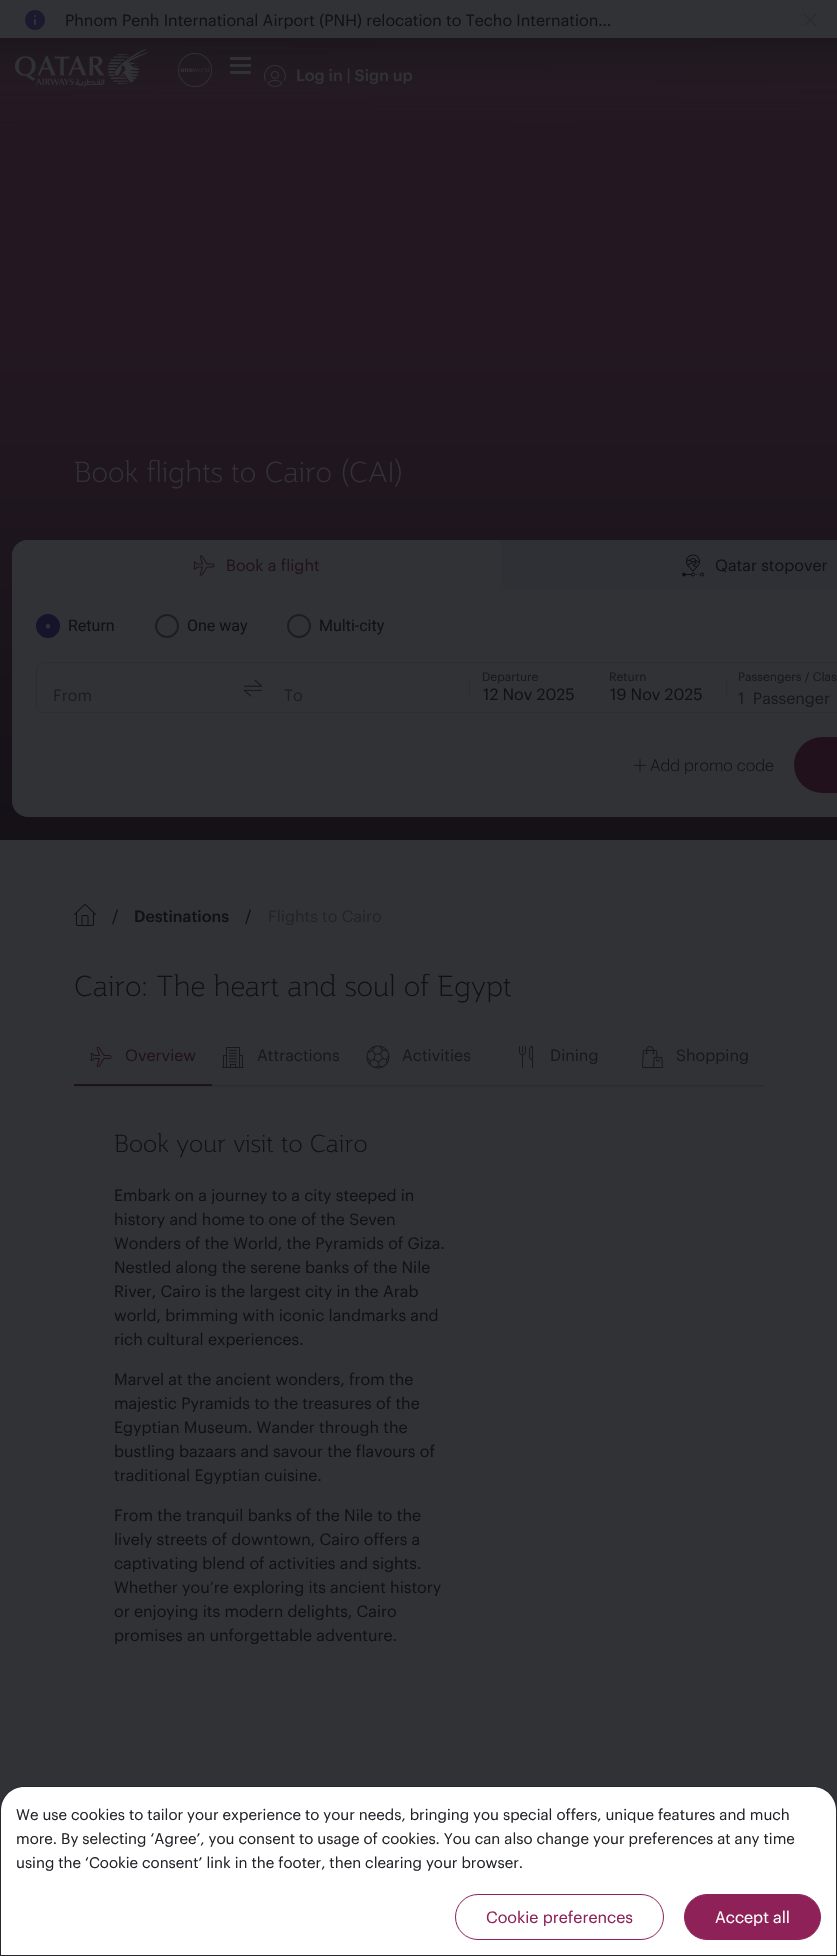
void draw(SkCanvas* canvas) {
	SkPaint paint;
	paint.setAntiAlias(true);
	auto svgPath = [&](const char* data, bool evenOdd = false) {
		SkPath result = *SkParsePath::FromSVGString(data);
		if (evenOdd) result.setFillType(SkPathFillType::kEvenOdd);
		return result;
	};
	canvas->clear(0xff313236);
	canvas->drawImageRect(SkImages::DeferredFromEncodedData(SkData::MakeFromFileName("img1.png")), SkRect::MakeXYWH(25, 10, 20, 20), SkSamplingOptions());
	SkFont f1(fontMgr->matchFamilyStyle("Graphik", SkFontStyle::Normal()), 16);
	f1.setSubpixel(true);
	paint.setColor(0xff101116);
	canvas->drawString("Phnom Penh International Airport (PNH) relocation to Techo Internation…", 65, 26, f1, paint);
	canvas->drawImageRect(SkImages::DeferredFromEncodedData(SkData::MakeFromFileName("img2.png")), SkRect::MakeXYWH(804, 14, 12, 12), SkSamplingOptions());
	{
		const SkColor colors[] = {0xff110d13, 0xff22141f};
		const float stops[] = {0, 0.6};
		const SkPoint ends[] = {{419, 840}, {419, 0}};
		paint.setShader(SkGradientShader::MakeLinear(ends, colors, stops, 2, SkTileMode::kClamp));
		paint.setAlpha(255);
	}
	canvas->drawRect(SkRect::MakeXYWH(0, 38, 837, 802), paint);
	{
		const SkColor colors[] = {0xb80b0c0f, 0x17313236};
		const float stops[] = {0, 0.15};
		const SkPoint ends[] = {{418, 0}, {419, 840}};
		paint.setShader(SkGradientShader::MakeLinear(ends, colors, stops, 2, SkTileMode::kClamp));
		paint.setAlpha(255);
	}
	canvas->drawRect(SkRect::MakeXYWH(0, 38, 837, 802), paint);
	canvas->drawImageRect(SkImages::DeferredFromEncodedData(SkData::MakeFromFileName("img3.png")), SkRect::MakeXYWH(15, 49, 133, 38), SkSamplingOptions());
	canvas->drawImageRect(SkImages::DeferredFromEncodedData(SkData::MakeFromFileName("img4.png")), SkRect::MakeXYWH(178, 53, 34, 34), SkSamplingOptions());
	paint.setShader(nullptr);
	paint.setColor(0xff313236);
	canvas->drawRect(SkRect::MakeXYWH(230, 57, 21, 3), paint);
	canvas->drawRect(SkRect::MakeXYWH(230, 64, 21, 3), paint);
	canvas->drawRect(SkRect::MakeXYWH(230, 71, 21, 3), paint);
	canvas->drawImageRect(SkImages::DeferredFromEncodedData(SkData::MakeFromFileName("img5.png")), SkRect::MakeXYWH(264, 65, 22, 22), SkSamplingOptions());
	SkFont f2(fontMgr->matchFamilyStyle("Graphik", SkFontStyle(500, SkFontStyle::kNormal_Width, SkFontStyle::kUpright_Slant)), 16);
	f2.setSubpixel(true);
	canvas->drawString("Log in | Sign up", 296, 81, f2, paint);
	paint.setColor(0xffffffff);
	canvas->drawPath(svgPath("M24 1787H813C825.5 1787 836 1797.5 836 1810V1955H1V1810C1 1797.5 11.5 1787 24 1787Z"), paint);
	paint.setStroke(true);
	paint.setStrokeWidth(1);
	paint.setColor(0x33000000);
	canvas->drawPath(svgPath("M24 1786.5H813C826 1786.5 836.5 1797 836.5 1810V1955.5H.5V1810C.5 1797 11 1786.5 24 1786.5Z"), paint);
	SkFont f3(fontMgr->matchFamilyStyle("Graphik", SkFontStyle::Normal()), 15);
	f3.setSubpixel(true);
	paint.setStroke(false);
	paint.setColor(0xff212328);
	canvas->drawString("We use cookies to tailor your experience to your needs, bringing you special offers, unique features and much", 16, 1820, f3, paint);
	canvas->drawString("more. By selecting ‘Agree’, you consent to usage of cookies. You can also change your preferences at any time", 16, 1844, f3, paint);
	canvas->drawString("using the ‘Cookie consent’ link in the footer, then clearing your browser.", 16, 1868, f3, paint);
	paint.setStroke(true);
	paint.setColor(0xff8e2157);
	canvas->drawRoundRect(SkRect::MakeXYWH(455.5, 1894.5, 208, 45), 22.5, 22.5, paint);
	paint.setStroke(false);
	canvas->drawString("Cookie preferences", 486, 1923, f1, paint);
	canvas->drawRoundRect(SkRect::MakeXYWH(684.5, 1894.5, 136, 45), 22.5, 22.5, paint);
	paint.setStroke(true);
	canvas->drawRoundRect(SkRect::MakeXYWH(684.5, 1894.5, 136, 45), 22.5, 22.5, paint);
	paint.setStroke(false);
	paint.setColor(0xffffffff);
	canvas->drawString("Accept all", 715, 1923, f1, paint);
	SkFont f4(fontMgr->matchFamilyStyle("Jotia", SkFontStyle(100, SkFontStyle::kNormal_Width, SkFontStyle::kUpright_Slant)), 28);
	f4.setSubpixel(true);
	paint.setColor(0xff313236);
	canvas->drawString("Book flights to Cairo (CAI)", 74, 482, f4, paint);
	canvas->drawRoundRect(SkRect::MakeXYWH(12, 540, 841, 277), 16, 16, paint);
	paint.setColor(0xff2f3035);
	canvas->drawPath(svgPath("M28 540H837C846 540 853 547 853 556V590H12V556C12 547 19 540 28 540Z"), paint);
	paint.setColor(0xff313236);
	canvas->drawPath(svgPath("M28 540H501V591H12V556C12 547 19 540 28 540Z"), paint);
	canvas->drawImageRect(SkImages::DeferredFromEncodedData(SkData::MakeFromFileName("img6.png")), SkRect::MakeXYWH(193, 555, 22, 21), SkSamplingOptions());
	paint.setColor(0xff20111c);
	canvas->drawString("Book a flight", 226, 571, f1, paint);
	canvas->drawImageRect(SkImages::DeferredFromEncodedData(SkData::MakeFromFileName("img7.png")), SkRect::MakeXYWH(682, 554, 22, 23), SkSamplingOptions());
	paint.setColor(0xff101116);
	canvas->drawString("Qatar stopover", 715, 571, f1, paint);
	paint.setColor(0xff14142a);
	canvas->drawCircle(48, 626, 11, paint);
	paint.setStroke(true);
	paint.setStrokeWidth(2);
	canvas->drawCircle(48, 626, 11, paint);
	paint.setStroke(false);
	paint.setColor(0xff313236);
	canvas->drawPath(svgPath("M48 628.5C45 628.5 45 624 48 624C51 624 51 628.5 48 628.5Z"), paint);
	SkFont f5(fontMgr->matchFamilyStyle("Roboto", SkFontStyle::Normal()), 16);
	f5.setSubpixel(true);
	paint.setColor(0xff101116);
	canvas->drawString("Return", 68, 631, f5, paint);
	paint.setStroke(true);
	paint.setColor(0xff1d1d21);
	canvas->drawCircle(167, 626, 11, paint);
	paint.setStroke(false);
	paint.setColor(0xff101116);
	canvas->drawString("One way", 187, 631, f5, paint);
	paint.setStroke(true);
	paint.setColor(0xff1d1d21);
	canvas->drawCircle(299, 626, 11, paint);
	paint.setStroke(false);
	paint.setColor(0xff101116);
	canvas->drawString("Multi-city", 319, 631, f5, paint);
	paint.setStroke(true);
	paint.setStrokeWidth(1);
	paint.setColor(0xff2c2d32);
	canvas->drawRoundRect(SkRect::MakeXYWH(36.5, 662.5, 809, 50), 7.5, 7.5, paint);
	paint.setStroke(false);
	paint.setColor(0xff1d1d21);
	canvas->drawString("From", 53, 701, f1, paint);
	canvas->drawImageRect(SkImages::DeferredFromEncodedData(SkData::MakeFromFileName("img8.png")), SkRect::MakeXYWH(243, 680, 20, 17), SkSamplingOptions());
	canvas->drawString("To", 284, 701, f1, paint);
	paint.setColor(0xff2c2d32);
	canvas->drawRect(SkRect::MakeXYWH(469, 680, 1, 16), paint);
	SkFont f6(fontMgr->matchFamilyStyle("Graphik", SkFontStyle::Normal()), 12);
	f6.setSubpixel(true);
	paint.setColor(0xff16181d);
	canvas->drawString("Departure", 482, 681, f6, paint);
	paint.setColor(0xff101116);
	canvas->drawString("12 Nov 2025", 483, 700, f1, paint);
	paint.setColor(0xff16181d);
	canvas->drawString("Return", 609, 681, f6, paint);
	paint.setColor(0xff101116);
	canvas->drawString("19 Nov 2025", 610, 700, f1, paint);
	paint.setColor(0xff2c2d32);
	canvas->drawRect(SkRect::MakeXYWH(726, 680, 1, 16), paint);
	paint.setColor(0xff16181d);
	canvas->drawString("Passengers / Clas", 738, 681, f6, paint);
	canvas->drawString("1  Passenger", 738, 704, f1, paint);
	canvas->drawImageRect(SkImages::DeferredFromEncodedData(SkData::MakeFromFileName("img9.png")), SkRect::MakeXYWH(633, 759, 14, 13), SkSamplingOptions());
	SkFont f7(fontMgr->matchFamilyStyle("Graphik", SkFontStyle(300, SkFontStyle::kNormal_Width, SkFontStyle::kUpright_Slant)), 16);
	f7.setSubpixel(true);
	paint.setColor(0xff101116);
	canvas->drawString("Add promo code", 650, 771, f7, paint);
	paint.setColor(0xff20111c);
	canvas->drawRoundRect(SkRect::MakeXYWH(794, 737, 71, 56), 28, 28, paint);
	canvas->drawImageRect(SkImages::DeferredFromEncodedData(SkData::MakeFromFileName("img10.png")), SkRect::MakeXYWH(74, 904, 22, 22), SkSamplingOptions());
	paint.setColor(0xff101116);
	canvas->drawString("/", 112, 922, f1, paint);
	canvas->drawString("Destinations", 134, 922, f2, paint);
	canvas->drawString("/", 245, 922, f1, paint);
	paint.setColor(0xff212328);
	canvas->drawString("Flights to Cairo", 268, 922, f1, paint);
	paint.setColor(0xff101116);
	canvas->drawString("Cairo: The heart and soul of Egypt", 74, 996, f4, paint);
	paint.setColor(0xff2c2e32);
	canvas->drawRect(SkRect::MakeXYWH(74, 1086, 690, 1), paint);
	paint.setColor(0xff20111c);
	canvas->drawRect(SkRect::MakeXYWH(74, 1084, 138, 2), paint);
	canvas->drawImageRect(SkImages::DeferredFromEncodedData(SkData::MakeFromFileName("img11.png")), SkRect::MakeXYWH(90, 1047, 22, 20), SkSamplingOptions());
	canvas->drawString("Overview", 125, 1061, f1, paint);
	paint.setColor(0xff2c2d32);
	canvas->drawRect(SkRect::MakeXYWH(212, 1085, 552, 1), paint);
	canvas->drawImageRect(SkImages::DeferredFromEncodedData(SkData::MakeFromFileName("img12.png")), SkRect::MakeXYWH(222, 1047, 22, 21), SkSamplingOptions());
	paint.setColor(0xff16181d);
	canvas->drawString("Attractions", 257, 1061, f1, paint);
	canvas->drawImageRect(SkImages::DeferredFromEncodedData(SkData::MakeFromFileName("img13.png")), SkRect::MakeXYWH(366, 1045, 24, 24), SkSamplingOptions());
	canvas->drawString("Activities", 402, 1061, f1, paint);
	canvas->drawImageRect(SkImages::DeferredFromEncodedData(SkData::MakeFromFileName("img14.png")), SkRect::MakeXYWH(518, 1045, 16, 23), SkSamplingOptions());
	canvas->drawString("Dining", 550, 1061, f1, paint);
	canvas->drawImageRect(SkImages::DeferredFromEncodedData(SkData::MakeFromFileName("img15.png")), SkRect::MakeXYWH(642, 1046, 21, 22), SkSamplingOptions());
	canvas->drawString("Shopping", 676, 1061, f1, paint);
	SkFont f8(fontMgr->matchFamilyStyle("Jotia", SkFontStyle(100, SkFontStyle::kNormal_Width, SkFontStyle::kUpright_Slant)), 24);
	f8.setSubpixel(true);
	paint.setColor(0xff101116);
	canvas->drawString("Book your visit to Cairo", 114, 1152, f8, paint);
	canvas->drawString("Embark on a journey to a city steeped in", 114, 1201, f1, paint);
	canvas->drawString("history and home to one of the Seven", 114, 1225, f1, paint);
	canvas->drawString("Wonders of the World, the Pyramids of Giza.", 114, 1249, f1, paint);
	canvas->drawString("Nestled along the serene banks of the Nile", 114, 1273, f1, paint);
	canvas->drawString("River, Cairo is the largest city in the Arab", 114, 1297, f1, paint);
	canvas->drawString("world, brimming with iconic landmarks and", 114, 1321, f1, paint);
	canvas->drawString("rich cultural experiences.", 114, 1345, f1, paint);
	canvas->drawString("Marvel at the ancient wonders, from the", 114, 1385, f1, paint);
	canvas->drawString("majestic Pyramids to the treasures of the", 114, 1409, f1, paint);
	canvas->drawString("Egyptian Museum. Wander through the", 114, 1433, f1, paint);
	canvas->drawString("bustling bazaars and savour the flavours of", 114, 1457, f1, paint);
	canvas->drawString("traditional Egyptian cuisine.", 114, 1481, f1, paint);
	canvas->drawString("From the tranquil banks of the Nile to the", 114, 1521, f1, paint);
	canvas->drawString("lively streets of downtown, Cairo offers a", 114, 1545, f1, paint);
	canvas->drawString("captivating blend of activities and sights.", 114, 1569, f1, paint);
	canvas->drawString("Whether you’re exploring its ancient history", 114, 1593, f1, paint);
	canvas->drawString("or enjoying its modern delights, Cairo", 114, 1617, f1, paint);
	canvas->drawString("promises an unforgettable adventure.", 114, 1641, f1, paint);
}
